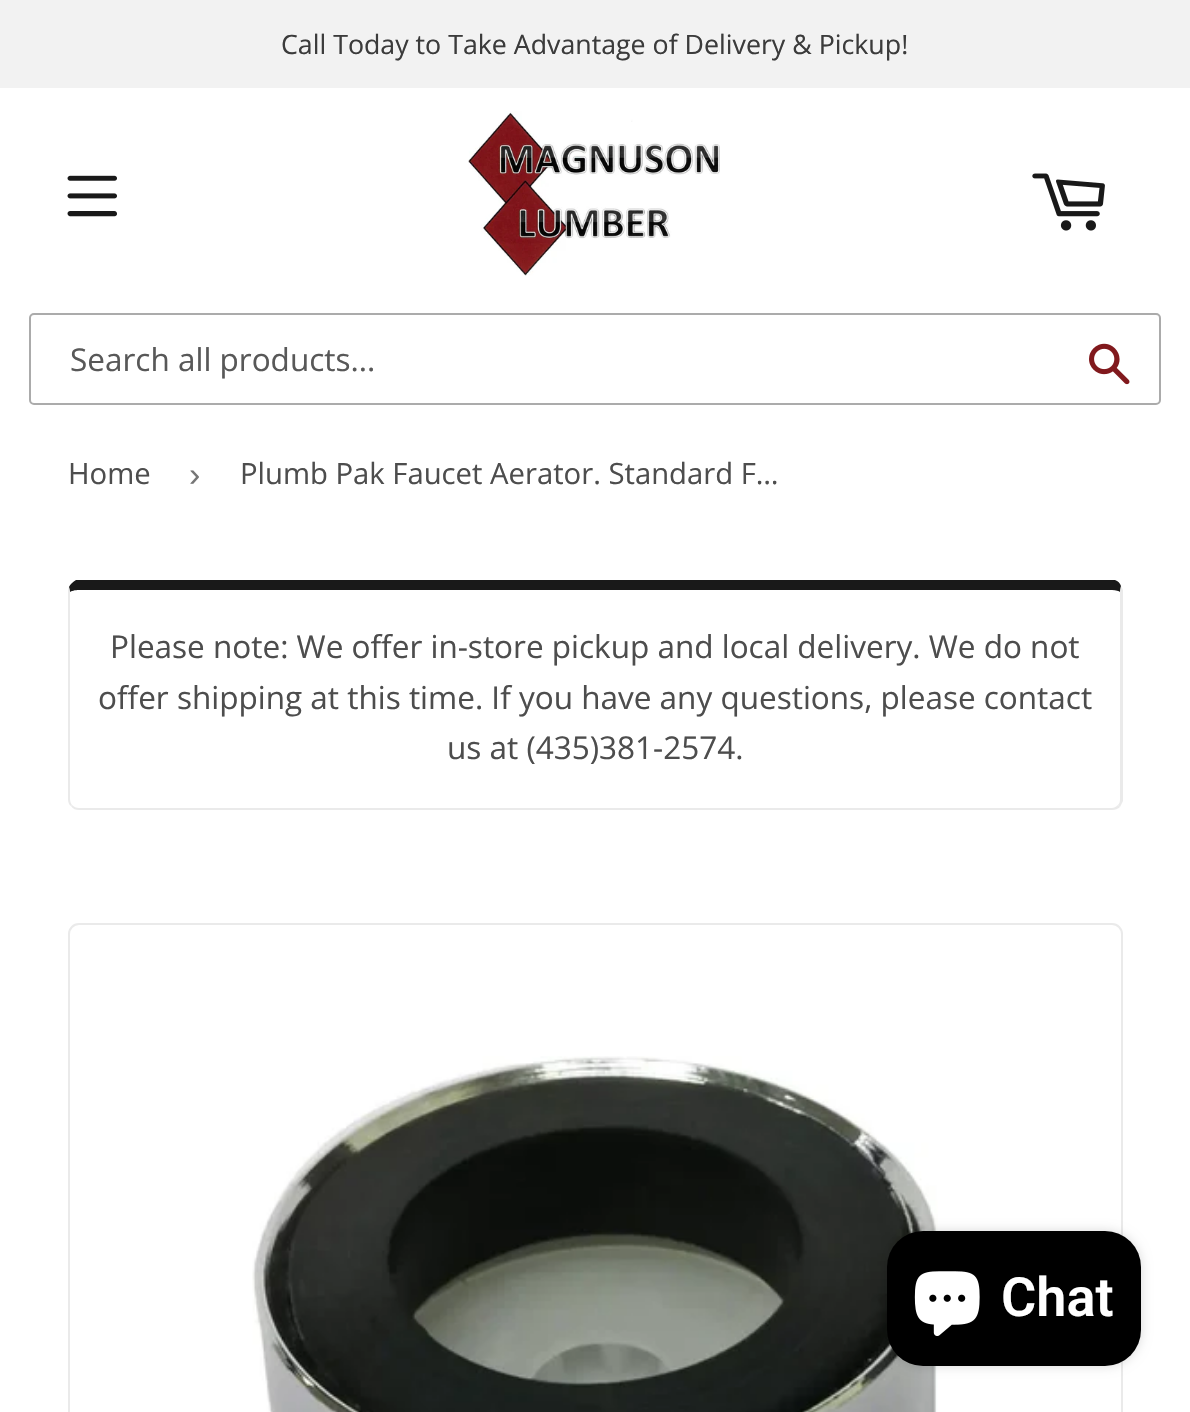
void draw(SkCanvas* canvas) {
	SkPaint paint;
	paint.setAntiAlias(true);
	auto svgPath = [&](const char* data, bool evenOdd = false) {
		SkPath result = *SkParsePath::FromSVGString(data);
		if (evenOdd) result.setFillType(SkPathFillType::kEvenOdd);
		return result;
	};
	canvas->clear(0xffffffff);
	paint.setColor(0xfff2f2f2);
	canvas->drawRect(SkRect::MakeXYWH(0, 0, 1190, 88), paint);
	SkFont f1(fontMgr->matchFamilyStyle("Open Sans", SkFontStyle::Normal()), 26.75);
	f1.setSubpixel(true);
	paint.setColor(0xff3b3b3b);
	canvas->drawString("Call Today to Take Advantage of Delivery & Pickup!", 281, 54, f1, paint);
	canvas->drawImageRect(SkImages::DeferredFromEncodedData(SkData::MakeFromFileName("img1.png")), SkRect::MakeXYWH(67, 175, 50, 42), SkSamplingOptions());
	canvas->drawImageRect(SkImages::DeferredFromEncodedData(SkData::MakeFromFileName("img2.png")), SkRect::MakeXYWH(468, 111, 252, 165), SkSamplingOptions());
	canvas->drawImageRect(SkImages::DeferredFromEncodedData(SkData::MakeFromFileName("img3.png")), SkRect::MakeXYWH(1032, 173, 73, 58), SkSamplingOptions());
	paint.setStroke(true);
	paint.setStrokeWidth(2);
	paint.setColor(0xffababab);
	canvas->drawRoundRect(SkRect::MakeXYWH(30, 314, 1130, 90), 4, 4, paint);
	SkFont f2(fontMgr->matchFamilyStyle("Open Sans", SkFontStyle::Normal()), 31.5);
	f2.setSubpixel(true);
	paint.setStroke(false);
	paint.setColor(0xff585858);
	canvas->drawString("Search all products...", 70, 371, f2, paint);
	canvas->drawImageRect(SkImages::DeferredFromEncodedData(SkData::MakeFromFileName("img4.png")), SkRect::MakeXYWH(1089, 343, 41, 42), SkSamplingOptions());
	SkFont f3(fontMgr->matchFamilyStyle("Open Sans", SkFontStyle::Normal()), 29.25);
	f3.setSubpixel(true);
	paint.setColor(0xff4d4d4d);
	canvas->drawString("Home", 68, 484, f3, paint);
	SkFont f4(fontMgr->matchFamilyStyle("Liberation Sans", SkFontStyle::Normal()), 34);
	f4.setSubpixel(true);
	paint.setColor(0xff767676);
	canvas->drawString("›", 189, 486, f4, paint);
	paint.setColor(0xff4d4d4d);
	canvas->drawString("Plumb Pak Faucet Aerator. Standard F…", 240, 484, f3, paint);
	paint.setColor(0xff191919);
	canvas->drawPath(svgPath("M79 590C75 590 71 591 70 592L69 587C70 584 73 582 76 580H1115C1118 581 1120 583 1121 586L1120 592C1119 591 1116 590 1112 590Z"), paint);
	paint.setColor(0xffeaeaea);
	canvas->drawPath(svgPath("M1123 801C1122 803 1121 805 1120 807L1118 805C1119 804 1120 802 1120 800V592L1121 586L1123 590Z"), paint);
	canvas->drawPath(svgPath("M79 810H1112C1115 810 1118 809 1120 807L1118 805C1116 807 1114 808 1112 808H79C76 808 74 807 72 805L71 806C73 809 76 810 79 810Z"), paint);
	canvas->drawPath(svgPath("M71 806C69 805 68 802 68 799V592C68 590 68 589 69 587L70 592V799C70 801 71 804 72 805Z"), paint);
	paint.setColor(0xff4d4d4d);
	canvas->drawString("Please note: We offer in-store pickup and local delivery. We do not", 110, 658, f2, paint);
	canvas->drawString("offer shipping at this time. If you have any questions, please contact", 98, 709, f2, paint);
	canvas->drawString("us at (435)381-2574.", 447, 759, f2, paint);
	paint.setStroke(true);
	paint.setColor(0xffeaeaea);
	canvas->drawRoundRect(SkRect::MakeXYWH(69, 924, 1053, 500), 10, 10, paint);
	canvas->drawImageRect(SkImages::DeferredFromEncodedData(SkData::MakeFromFileName("img5.png")), SkRect::MakeXYWH(252, 1056, 686, 356), SkSamplingOptions());
	paint.setStroke(false);
	paint.setColor(0x26000000);
	paint.setMaskFilter(SkMaskFilter::MakeBlur(kNormal_SkBlurStyle, 5.5));
	canvas->drawRoundRect(SkRect::MakeXYWH(887, 1231, 254, 135), 36, 36, paint);
	paint.setMaskFilter(nullptr);
	paint.setColor(0xff000000);
	canvas->drawRoundRect(SkRect::MakeXYWH(887, 1231, 254, 135), 36, 36, paint);
	canvas->drawImageRect(SkImages::DeferredFromEncodedData(SkData::MakeFromFileName("img6.png")), SkRect::MakeXYWH(914, 1271, 66, 65), SkSamplingOptions());
	SkFont f5(fontMgr->matchFamilyStyle("Roboto", SkFontStyle(600, SkFontStyle::kNormal_Width, SkFontStyle::kUpright_Slant)), 54);
	f5.setSubpixel(true);
	paint.setColor(0xffffffff);
	canvas->drawString("Chat", 1001, 1316, f5, paint);
}
